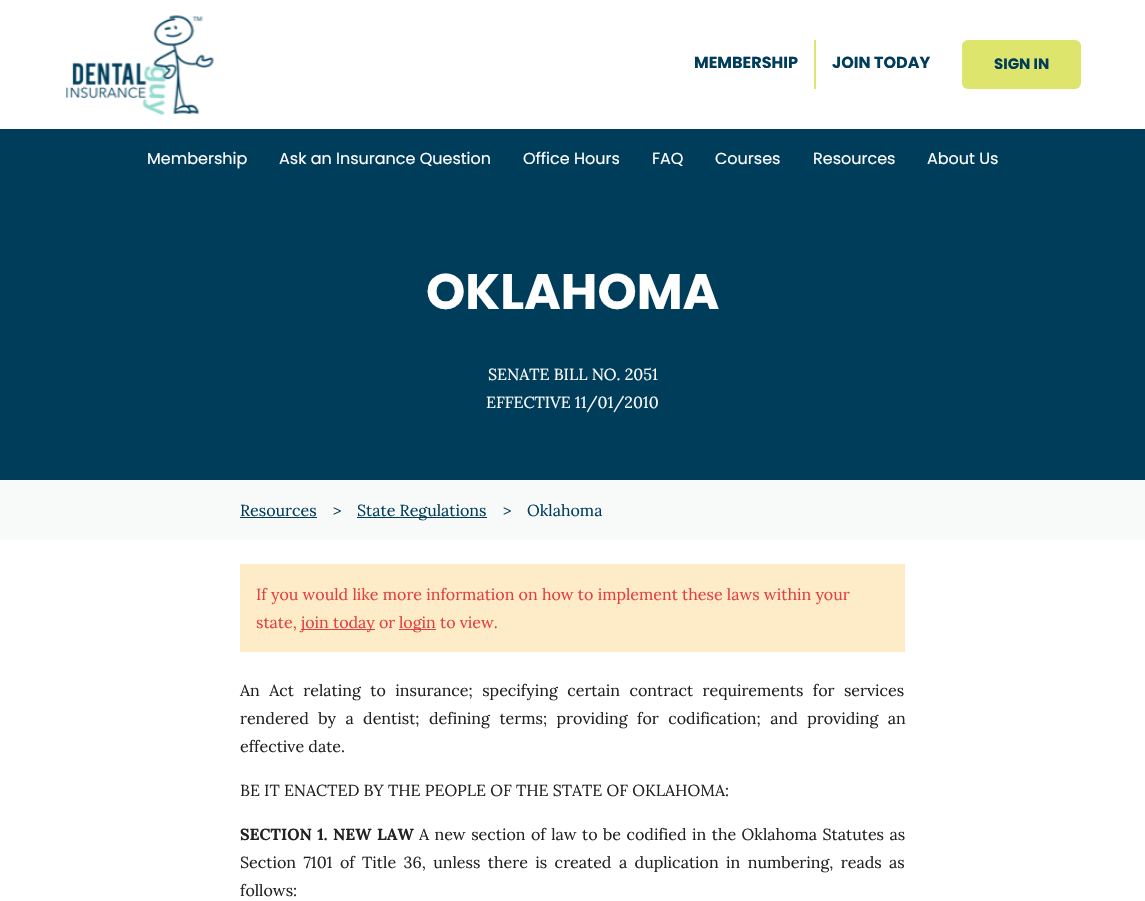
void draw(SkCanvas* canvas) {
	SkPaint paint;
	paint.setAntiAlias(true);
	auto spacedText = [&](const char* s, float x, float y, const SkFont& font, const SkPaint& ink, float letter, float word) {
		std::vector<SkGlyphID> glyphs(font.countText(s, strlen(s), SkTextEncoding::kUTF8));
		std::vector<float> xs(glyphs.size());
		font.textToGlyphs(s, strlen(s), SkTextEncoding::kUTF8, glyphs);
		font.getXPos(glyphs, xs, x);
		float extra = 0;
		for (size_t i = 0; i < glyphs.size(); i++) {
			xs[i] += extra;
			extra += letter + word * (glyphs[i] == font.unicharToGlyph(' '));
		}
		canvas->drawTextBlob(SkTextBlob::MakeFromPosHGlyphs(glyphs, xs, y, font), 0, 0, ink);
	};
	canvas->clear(0xffffffff);
	canvas->drawImageRect(SkImages::DeferredFromEncodedData(SkData::MakeFromFileName("img1.png")), SkRect::MakeXYWH(66, 15, 148, 100), SkSamplingOptions());
	SkFont f1(fontMgr->matchFamilyStyle("Poppins", SkFontStyle::Bold()), 16);
	f1.setSubpixel(true);
	paint.setColor(0xff003d5b);
	canvas->drawString("MEMBERSHIP", 694, 68, f1, paint);
	paint.setColor(0xffdde56d);
	canvas->drawRect(SkRect::MakeXYWH(814, 40, 2, 49), paint);
	paint.setColor(0xff003d5b);
	canvas->drawString("JOIN TODAY", 832, 68, f1, paint);
	paint.setColor(0xffdde56d);
	canvas->drawRoundRect(SkRect::MakeXYWH(962, 40, 119, 49), 6, 6, paint);
	SkFont f2(fontMgr->matchFamilyStyle("Poppins", SkFontStyle::Bold()), 15);
	f2.setSubpixel(true);
	paint.setColor(0xff003d5b);
	canvas->drawString("SIGN IN", 994, 69, f2, paint);
	canvas->drawRect(SkRect::MakeXYWH(0, 129, 1145, 351), paint);
	SkFont f3(fontMgr->matchFamilyStyle("Poppins", SkFontStyle::Normal()), 16);
	f3.setSubpixel(true);
	paint.setColor(0xffffffff);
	canvas->drawString("Membership", 147, 164, f3, paint);
	canvas->drawString("Ask an Insurance Question", 279, 164, f3, paint);
	canvas->drawString("Office Hours", 523, 164, f3, paint);
	canvas->drawString("FAQ", 652, 164, f3, paint);
	canvas->drawString("Courses", 715, 164, f3, paint);
	canvas->drawString("Resources", 813, 164, f3, paint);
	canvas->drawString("About Us", 927, 164, f3, paint);
	SkFont f4(fontMgr->matchFamilyStyle("Poppins", SkFontStyle::Bold()), 50);
	f4.setSubpixel(true);
	canvas->drawString("OKLAHOMA", 426, 309, f4, paint);
	SkFont f5(fontMgr->matchFamilyStyle("Lora", SkFontStyle::Normal()), 16);
	f5.setSubpixel(true);
	canvas->drawString("SENATE BILL NO. 2051", 488, 380, f5, paint);
	canvas->drawString("EFFECTIVE 11/01/2010", 486, 408, f5, paint);
	paint.setColor(0xfff8f9f9);
	canvas->drawRect(SkRect::MakeXYWH(0, 480, 1145, 60), paint);
	paint.setColor(0xff003d5b);
	canvas->drawString("Resources", 240, 516, f5, paint);
	canvas->drawRect(SkRect::MakeXYWH(240, 517, 77, 1), paint);
	canvas->drawString(">", 333, 516, f5, paint);
	canvas->drawRect(SkRect::MakeXYWH(357, 517, 130, 1), paint);
	canvas->drawString("State Regulations", 357, 516, f5, paint);
	canvas->drawString(">", 503, 516, f5, paint);
	canvas->drawString("Oklahoma", 527, 516, f5, paint);
	paint.setColor(0xfffeebc8);
	canvas->drawRect(SkRect::MakeXYWH(240, 564, 665, 88), paint);
	paint.setColor(0xffe53e3e);
	canvas->drawString("If you would like more information on how to implement these laws within your", 256, 600, f5, paint);
	canvas->drawString("state,", 256, 628, f5, paint);
	canvas->drawRect(SkRect::MakeXYWH(301, 629, 74, 1), paint);
	canvas->drawString("join today or", 301, 628, f5, paint);
	canvas->drawRect(SkRect::MakeXYWH(399, 629, 37, 1), paint);
	canvas->drawString("login to view.", 399, 628, f5, paint);
	paint.setColor(0xff222222);
	spacedText("An Act relating to insurance; specifying certain contract requirements for services", 240, 696, f5, paint, 0, 5.25);
	spacedText("rendered by a dentist; defining terms; providing for codification; and providing an", 240, 724, f5, paint, 0, 5.25);
	canvas->drawString("effective date.", 240, 752, f5, paint);
	canvas->drawString("BE IT ENACTED BY THE PEOPLE OF THE STATE OF OKLAHOMA:", 240, 796, f5, paint);
	SkFont f6(fontMgr->matchFamilyStyle("Lora", SkFontStyle::Bold()), 16);
	f6.setSubpixel(true);
	spacedText("SECTION 1. NEW LAW", 240, 840, f6, paint, 0, 1.25);
	spacedText("A new section of law to be codified in the Oklahoma Statutes as", 419, 840, f5, paint, 0, 1.25);
	spacedText("Section 7101 of Title 36, unless there is created a duplication in numbering, reads as", 240, 868, f5, paint, 0, 3.25);
	canvas->drawString("follows:", 240, 896, f5, paint);
}
